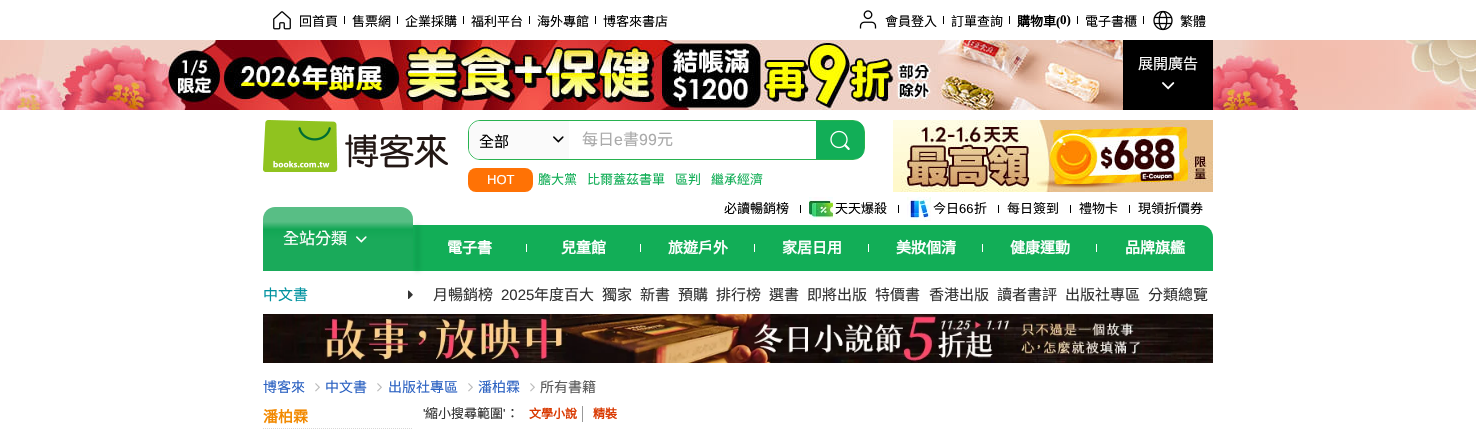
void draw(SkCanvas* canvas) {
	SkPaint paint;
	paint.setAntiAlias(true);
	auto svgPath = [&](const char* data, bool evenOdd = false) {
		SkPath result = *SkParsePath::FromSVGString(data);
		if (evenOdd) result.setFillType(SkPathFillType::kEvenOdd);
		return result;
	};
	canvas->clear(0xffffffff);
	canvas->drawImageRect(SkImages::DeferredFromEncodedData(SkData::MakeFromFileName("img1.png")), SkRect::MakeXYWH(273, 11, 18, 19), SkSamplingOptions());
	SkFont f1(fontMgr->matchFamilyStyle("Noto Sans CJK TC", SkFontStyle::Normal()), 13);
	f1.setSubpixel(true);
	paint.setColor(0xff000000);
	canvas->drawString("回首頁", 299, 26, f1, paint);
	canvas->drawRect(SkRect::MakeXYWH(344, 16, 1, 8), paint);
	canvas->drawString("售票網", 352, 26, f1, paint);
	canvas->drawRect(SkRect::MakeXYWH(397, 16, 1, 8), paint);
	canvas->drawString("企業採購", 405, 26, f1, paint);
	canvas->drawRect(SkRect::MakeXYWH(463, 16, 1, 8), paint);
	canvas->drawString("福利平台", 471, 26, f1, paint);
	canvas->drawRect(SkRect::MakeXYWH(529, 16, 1, 8), paint);
	canvas->drawString("海外專館", 537, 26, f1, paint);
	canvas->drawRect(SkRect::MakeXYWH(595, 16, 1, 8), paint);
	canvas->drawString("博客來書店", 603, 26, f1, paint);
	canvas->drawImageRect(SkImages::DeferredFromEncodedData(SkData::MakeFromFileName("img2.png")), SkRect::MakeXYWH(859, 10, 18, 19), SkSamplingOptions());
	canvas->drawString("會員登入", 885, 26, f1, paint);
	canvas->drawRect(SkRect::MakeXYWH(943, 16, 1, 8), paint);
	canvas->drawString("訂單查詢", 951, 26, f1, paint);
	canvas->drawRect(SkRect::MakeXYWH(1009, 16, 1, 8), paint);
	SkFont f2(fontMgr->matchFamilyStyle("Noto Sans CJK TC", SkFontStyle::Bold()), 13);
	f2.setSubpixel(true);
	canvas->drawString("購物車", 1017, 26, f2, paint);
	SkFont f3(fontMgr->matchFamilyStyle("Liberation Serif", SkFontStyle::Bold()), 13);
	f3.setSubpixel(true);
	canvas->drawString("(", 1056, 26, f3, paint);
	canvas->drawString("0)", 1060, 24, f3, paint);
	canvas->drawRect(SkRect::MakeXYWH(1077, 16, 1, 8), paint);
	canvas->drawString("電子書櫃", 1085, 26, f1, paint);
	canvas->drawRect(SkRect::MakeXYWH(1143, 16, 1, 8), paint);
	canvas->drawImageRect(SkImages::DeferredFromEncodedData(SkData::MakeFromFileName("img3.png")), SkRect::MakeXYWH(1153, 10, 20, 21), SkSamplingOptions());
	canvas->drawString("繁體", 1180, 26, f1, paint);
	canvas->drawImageRect(SkImages::DeferredFromEncodedData(SkData::MakeFromFileName("img4.png")), SkRect::MakeXYWH(0, 40, 1476, 70), SkSamplingOptions());
	canvas->drawRect(SkRect::MakeXYWH(1123, 40, 90, 70), paint);
	SkFont f4(fontMgr->matchFamilyStyle("Noto Sans CJK TC", SkFontStyle::Normal()), 15);
	f4.setSubpixel(true);
	paint.setColor(0xffffffff);
	canvas->drawString("展開廣告", 1138, 69, f4, paint);
	canvas->drawImageRect(SkImages::DeferredFromEncodedData(SkData::MakeFromFileName("img5.png")), SkRect::MakeXYWH(1162, 82, 13, 8), SkSamplingOptions());
	canvas->drawImageRect(SkImages::DeferredFromEncodedData(SkData::MakeFromFileName("img6.png")), SkRect::MakeXYWH(263, 120, 185, 52), SkSamplingOptions());
	paint.setStroke(true);
	paint.setStrokeWidth(1);
	paint.setColor(0xff27b24f);
	canvas->drawRoundRect(SkRect::MakeXYWH(468.5, 120.5, 396, 39), 11.5, 11.5, paint);
	paint.setStroke(false);
	paint.setColor(0xfffafafa);
	canvas->drawPath(svgPath("M480 121H569V159H480C474 159 469 154 469 148V132C469 126 474 121 480 121Z"), paint);
	paint.setColor(0xff000000);
	canvas->drawString("全部", 479, 147, f4, paint);
	canvas->drawImageRect(SkImages::DeferredFromEncodedData(SkData::MakeFromFileName("img7.png")), SkRect::MakeXYWH(553, 136, 11, 7), SkSamplingOptions());
	SkFont f5(fontMgr->matchFamilyStyle("Noto Sans CJK TC", SkFontStyle::Normal()), 16);
	f5.setSubpixel(true);
	paint.setColor(0xffaaaaaa);
	canvas->drawString("每日", 582, 145, f5, paint);
	SkFont f6(fontMgr->matchFamilyStyle("Liberation Sans", SkFontStyle::Normal()), 16);
	f6.setSubpixel(true);
	canvas->drawString("e", 614, 145, f6, paint);
	canvas->drawString("書", 623, 145, f5, paint);
	canvas->drawString("99", 639, 145, f6, paint);
	canvas->drawString("元", 657, 145, f5, paint);
	paint.setColor(0xff12ae57);
	canvas->drawPath(svgPath("M816 121H855C860 121 864 125 864 130V150C864 155 860 159 855 159H816Z"), paint);
	canvas->drawImageRect(SkImages::DeferredFromEncodedData(SkData::MakeFromFileName("img8.png")), SkRect::MakeXYWH(830, 130, 20, 20), SkSamplingOptions());
	canvas->drawImageRect(SkImages::DeferredFromEncodedData(SkData::MakeFromFileName("img9.png")), SkRect::MakeXYWH(893, 120, 320, 72), SkSamplingOptions());
	paint.setColor(0xffff7205);
	canvas->drawRoundRect(SkRect::MakeXYWH(468, 168, 65, 24), 8, 8, paint);
	SkFont f7(fontMgr->matchFamilyStyle("Liberation Sans", SkFontStyle::Normal()), 13);
	f7.setSubpixel(true);
	paint.setColor(0xffffffff);
	canvas->drawString("HOT", 487, 184, f7, paint);
	paint.setColor(0xff12ae57);
	canvas->drawString("膽大黨", 538, 184, f1, paint);
	canvas->drawString("比爾蓋茲書單", 587, 184, f1, paint);
	canvas->drawString("區判", 675, 184, f1, paint);
	canvas->drawString("繼承經濟", 711, 184, f1, paint);
	paint.setColor(0xff000000);
	canvas->drawString("必讀暢銷榜", 724, 213, f1, paint);
	canvas->drawRect(SkRect::MakeXYWH(800, 205, 1, 8), paint);
	canvas->drawImageRect(SkImages::DeferredFromEncodedData(SkData::MakeFromFileName("img10.png")), SkRect::MakeXYWH(809, 197, 24, 24), SkSamplingOptions());
	canvas->drawString("天天爆殺", 835, 213, f1, paint);
	canvas->drawRect(SkRect::MakeXYWH(898, 205, 1, 8), paint);
	canvas->drawImageRect(SkImages::DeferredFromEncodedData(SkData::MakeFromFileName("img11.png")), SkRect::MakeXYWH(907, 197, 24, 24), SkSamplingOptions());
	canvas->drawString("今日", 933, 213, f1, paint);
	canvas->drawString("66", 959, 213, f7, paint);
	canvas->drawString("折", 974, 213, f1, paint);
	canvas->drawRect(SkRect::MakeXYWH(998, 205, 1, 8), paint);
	canvas->drawString("每日簽到", 1007, 213, f1, paint);
	canvas->drawRect(SkRect::MakeXYWH(1070, 205, 1, 8), paint);
	canvas->drawString("禮物卡", 1079, 213, f1, paint);
	canvas->drawRect(SkRect::MakeXYWH(1129, 205, 1, 8), paint);
	canvas->drawString("現領折價券", 1138, 213, f1, paint);
	paint.setColor(0xff12ae57);
	canvas->drawPath(svgPath("M275 225H1201C1207.5 225 1213 230.5 1213 237V271H263V237C263 230.5 268.5 225 275 225Z"), paint);
	{
		const SkColor colors[] = {0xff58be85, 0xff12a654, 0xff1aaa5a};
		const float stops[] = {0.23, 0.35, 0.51};
		const SkPoint ends[] = {{338, 207}, {338, 271}};
		paint.setShader(SkGradientShader::MakeLinear(ends, colors, stops, 3, SkTileMode::kClamp));
		paint.setAlpha(255);
	}
	canvas->drawPath(svgPath("M275 207H401C407.5 207 413 212.5 413 219V271H263V219C263 212.5 268.5 207 275 207Z"), paint);
	paint.setShader(nullptr);
	paint.setColor(0xffffffff);
	canvas->drawString("全站分類", 283, 244, f5, paint);
	canvas->drawImageRect(SkImages::DeferredFromEncodedData(SkData::MakeFromFileName("img12.png")), SkRect::MakeXYWH(356, 236, 11, 7), SkSamplingOptions());
	paint.setColor(0xff00632c);
	paint.setMaskFilter(SkMaskFilter::MakeBlur(kNormal_SkBlurStyle, 2.5));
	canvas->drawRoundRect(SkRect::MakeXYWH(417, 225, 1, 46), 1, 1, paint);
	paint.setMaskFilter(nullptr);
	SkFont f8(fontMgr->matchFamilyStyle("Noto Sans CJK TC", SkFontStyle::Bold()), 15);
	f8.setSubpixel(true);
	paint.setColor(0xffffffff);
	canvas->drawString("電子書", 447, 253, f8, paint);
	canvas->drawRect(SkRect::MakeXYWH(526, 244, 1, 8), paint);
	canvas->drawString("兒童館", 561, 253, f8, paint);
	canvas->drawRect(SkRect::MakeXYWH(640, 244, 1, 8), paint);
	canvas->drawString("旅遊戶外", 668, 253, f8, paint);
	canvas->drawRect(SkRect::MakeXYWH(754, 244, 1, 8), paint);
	canvas->drawString("家居日用", 782, 253, f8, paint);
	canvas->drawRect(SkRect::MakeXYWH(868, 244, 1, 8), paint);
	canvas->drawString("美妝個清", 896, 253, f8, paint);
	canvas->drawRect(SkRect::MakeXYWH(982, 244, 1, 8), paint);
	canvas->drawString("健康運動", 1010, 253, f8, paint);
	canvas->drawRect(SkRect::MakeXYWH(1096, 244, 1, 8), paint);
	canvas->drawString("品牌旗艦", 1125, 253, f8, paint);
	paint.setColor(0xff00929f);
	canvas->drawString("中文書", 263, 300, f4, paint);
	canvas->drawImageRect(SkImages::DeferredFromEncodedData(SkData::MakeFromFileName("img13.png")), SkRect::MakeXYWH(408, 290, 5, 9), SkSamplingOptions());
	paint.setColor(0xff333333);
	canvas->drawString("月暢銷榜", 433, 300, f4, paint);
	SkFont f9(fontMgr->matchFamilyStyle("Liberation Sans", SkFontStyle::Normal()), 15);
	f9.setSubpixel(true);
	canvas->drawString("2025", 501, 300, f9, paint);
	canvas->drawString("年度百大", 534, 300, f4, paint);
	canvas->drawString("獨家", 602, 300, f4, paint);
	canvas->drawString("新書", 640, 300, f4, paint);
	canvas->drawString("預購", 678, 300, f4, paint);
	canvas->drawString("排行榜", 716, 300, f4, paint);
	canvas->drawString("選書", 769, 300, f4, paint);
	canvas->drawString("即將出版", 807, 300, f4, paint);
	canvas->drawString("特價書", 875, 300, f4, paint);
	canvas->drawString("香港出版", 929, 300, f4, paint);
	canvas->drawString("讀者書評", 997, 300, f4, paint);
	canvas->drawString("出版社專區", 1065, 300, f4, paint);
	canvas->drawString("分類總覽", 1148, 300, f4, paint);
	canvas->drawImageRect(SkImages::DeferredFromEncodedData(SkData::MakeFromFileName("img14.png")), SkRect::MakeXYWH(263, 314, 950, 49), SkSamplingOptions());
	SkFont f10(fontMgr->matchFamilyStyle("Noto Sans CJK TC", SkFontStyle::Normal()), 14);
	f10.setSubpixel(true);
	paint.setColor(0xff2c62c2);
	canvas->drawString("博客來", 263, 392, f10, paint);
	canvas->drawImageRect(SkImages::DeferredFromEncodedData(SkData::MakeFromFileName("img15.png")), SkRect::MakeXYWH(315, 383, 5, 9), SkSamplingOptions());
	canvas->drawString("中文書", 325, 392, f10, paint);
	canvas->drawImageRect(SkImages::DeferredFromEncodedData(SkData::MakeFromFileName("img15.png")), SkRect::MakeXYWH(377, 383, 5, 9), SkSamplingOptions());
	canvas->drawString("出版社專區", 388, 392, f10, paint);
	canvas->drawImageRect(SkImages::DeferredFromEncodedData(SkData::MakeFromFileName("img15.png")), SkRect::MakeXYWH(468, 383, 5, 9), SkSamplingOptions());
	canvas->drawString("潘柏霖", 478, 392, f10, paint);
	canvas->drawImageRect(SkImages::DeferredFromEncodedData(SkData::MakeFromFileName("img15.png")), SkRect::MakeXYWH(530, 383, 5, 9), SkSamplingOptions());
	paint.setColor(0xff5a5a5a);
	canvas->drawString("所有書籍", 540, 392, f10, paint);
	paint.setStroke(true);
	paint.setColor(0xffd8d8d8);
	paint.setPathEffect(SkDashPathEffect::Make({{1, 1}}, 0));
	canvas->drawPath(svgPath("M263 428.5H413"), paint);
	paint.setPathEffect(nullptr);
	paint.setStroke(false);
	paint.setColor(0xfff28900);
	canvas->drawString("潘柏霖", 263, 422, f8, paint);
	paint.setColor(0xff333333);
	canvas->drawString("'", 423, 418, f7, paint);
	canvas->drawString("縮小搜尋範圍", 425, 418, f1, paint);
	canvas->drawString("'", 503, 418, f7, paint);
	canvas->drawString("：", 506, 418, f1, paint);
	SkFont f11(fontMgr->matchFamilyStyle("Noto Sans CJK TC", SkFontStyle::Bold()), 12);
	f11.setSubpixel(true);
	paint.setColor(0xffd93800);
	canvas->drawString("文學小說", 529, 418, f11, paint);
	paint.setColor(0xff999999);
	canvas->drawRect(SkRect::MakeXYWH(582, 406, 1, 16), paint);
	paint.setColor(0xffd93800);
	canvas->drawString("精裝", 593, 418, f11, paint);
}
